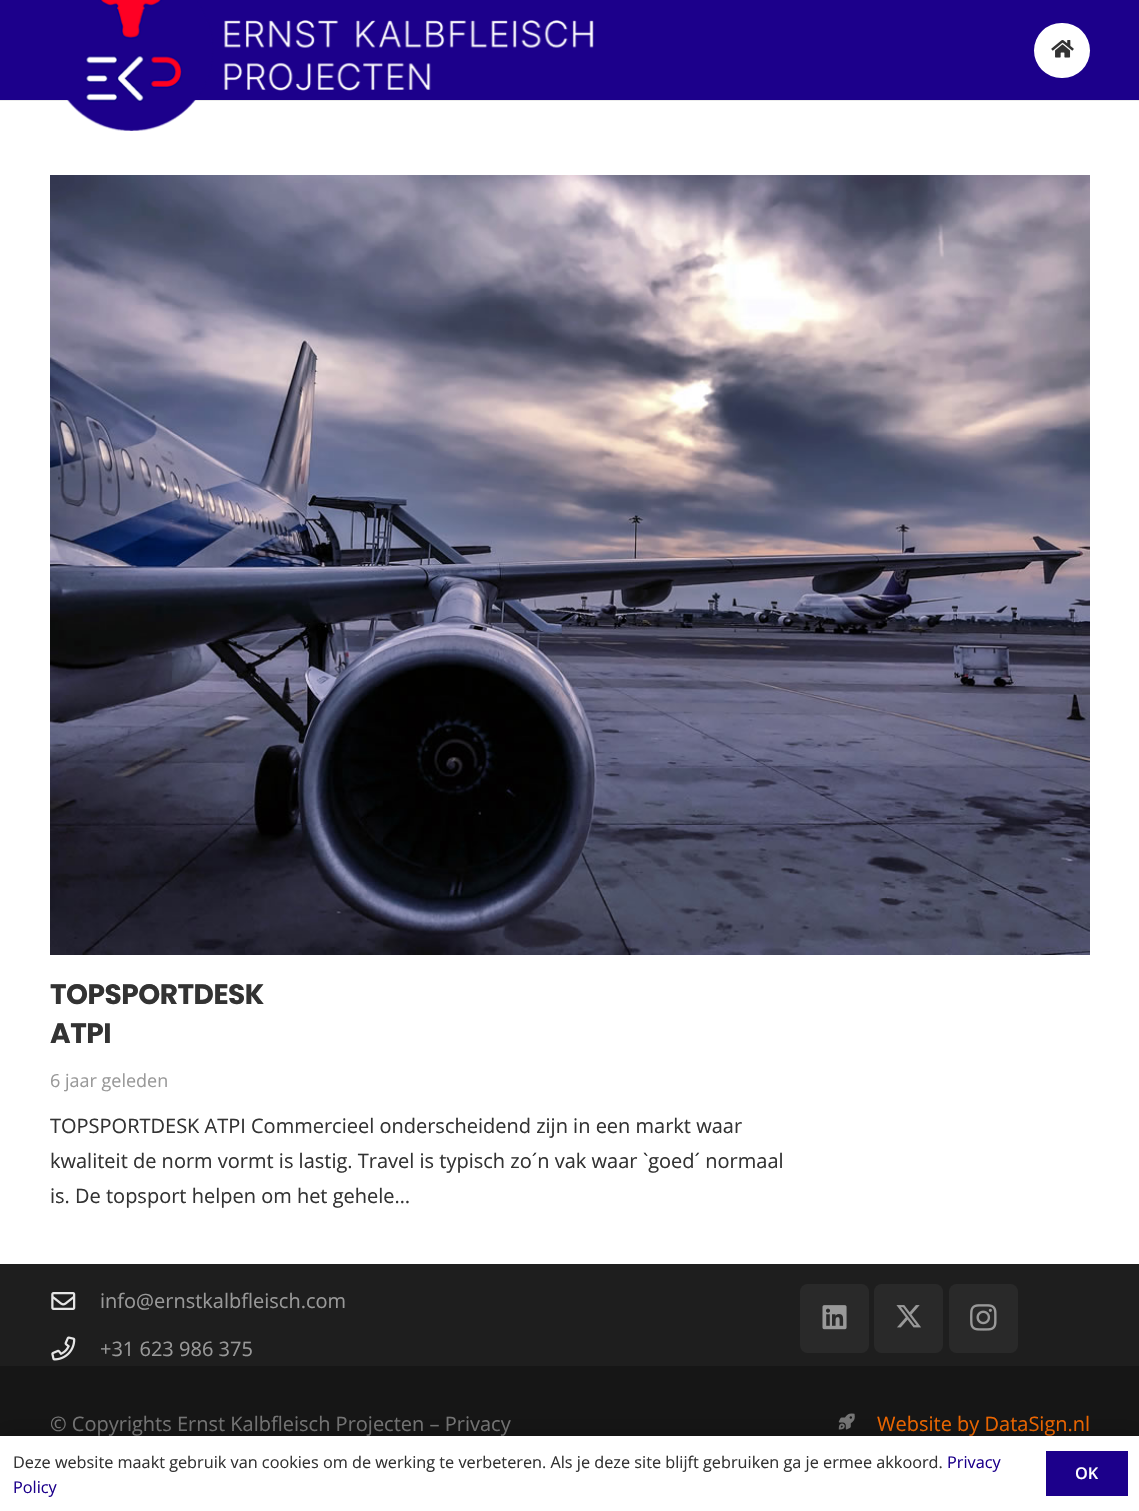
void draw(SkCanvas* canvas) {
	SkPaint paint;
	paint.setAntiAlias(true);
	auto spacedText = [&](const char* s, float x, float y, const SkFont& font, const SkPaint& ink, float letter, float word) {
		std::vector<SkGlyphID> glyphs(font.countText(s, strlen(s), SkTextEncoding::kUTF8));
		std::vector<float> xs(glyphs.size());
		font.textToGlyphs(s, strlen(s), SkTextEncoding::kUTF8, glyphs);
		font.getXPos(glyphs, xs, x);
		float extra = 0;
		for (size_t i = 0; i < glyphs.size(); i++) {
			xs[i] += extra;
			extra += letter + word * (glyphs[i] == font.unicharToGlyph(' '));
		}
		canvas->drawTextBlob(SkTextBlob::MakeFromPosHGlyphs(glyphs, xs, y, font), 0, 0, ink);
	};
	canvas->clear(0xffffffff);
	paint.setColor(0xffebebeb);
	canvas->drawRect(SkRect::MakeXYWH(0, 100, 1139, 1), paint);
	paint.setColor(0xff1c008b);
	canvas->drawRect(SkRect::MakeXYWH(0, 0, 1139, 100), paint);
	canvas->drawImageRect(SkImages::DeferredFromEncodedData(SkData::MakeFromFileName("img1.png")), SkRect::MakeXYWH(67, 0, 527, 131), SkSamplingOptions());
	paint.setColor(0xffffffff);
	canvas->drawRoundRect(SkRect::MakeXYWH(1034, 23, 56, 55), 27.5, 27.5, paint);
	canvas->drawImageRect(SkImages::DeferredFromEncodedData(SkData::MakeFromFileName("img2.png")), SkRect::MakeXYWH(1051, 40, 23, 18), SkSamplingOptions());
	canvas->drawImageRect(SkImages::DeferredFromEncodedData(SkData::MakeFromFileName("img3.png")), SkRect::MakeXYWH(50, 175, 1040, 780), SkSamplingOptions());
	SkFont f1(fontMgr->matchFamilyStyle("Poppins", SkFontStyle::Bold()), 28);
	f1.setSubpixel(true);
	paint.setColor(0xff333333);
	spacedText("TOPSPORTDESK", 50, 1004, f1, paint, -0.5, 0);
	spacedText("ATPI", 50, 1043, f1, paint, -0.5, 0);
	SkFont f2(fontMgr->matchFamilyStyle("Open Sans", SkFontStyle::Normal()), 18);
	f2.setSubpixel(true);
	paint.setColor(0xff999999);
	canvas->drawString("6 jaar geleden", 50, 1087, f2, paint);
	SkFont f3(fontMgr->matchFamilyStyle("Open Sans", SkFontStyle::Normal()), 20);
	f3.setSubpixel(true);
	paint.setColor(0xff333333);
	canvas->drawString("TOPSPORTDESK ATPI Commercieel onderscheidend zijn in een markt waar", 50, 1133, f3, paint);
	canvas->drawString("kwaliteit de norm vormt is lastig. Travel is typisch zo´n vak waar `goed´ normaal", 50, 1168, f3, paint);
	canvas->drawString("is. De topsport helpen om het gehele…", 50, 1203, f3, paint);
	paint.setColor(0xff1e1e1e);
	canvas->drawRect(SkRect::MakeXYWH(0, 1264, 1139, 102), paint);
	canvas->drawImageRect(SkImages::DeferredFromEncodedData(SkData::MakeFromFileName("img4.png")), SkRect::MakeXYWH(51, 1292, 25, 18), SkSamplingOptions());
	paint.setColor(0xff999999);
	canvas->drawString("info@ernstkalbfleisch.com", 100, 1308, f3, paint);
	canvas->drawImageRect(SkImages::DeferredFromEncodedData(SkData::MakeFromFileName("img5.png")), SkRect::MakeXYWH(51, 1336, 25, 25), SkSamplingOptions());
	canvas->drawString("+31 623 986 375", 100, 1356, f3, paint);
	paint.setColor(0xff292929);
	canvas->drawRoundRect(SkRect::MakeXYWH(800, 1284, 69, 69), 8, 8, paint);
	canvas->drawImageRect(SkImages::DeferredFromEncodedData(SkData::MakeFromFileName("img6.png")), SkRect::MakeXYWH(822, 1305, 25, 25), SkSamplingOptions());
	canvas->drawRoundRect(SkRect::MakeXYWH(874, 1284, 69, 69), 8, 8, paint);
	canvas->drawImageRect(SkImages::DeferredFromEncodedData(SkData::MakeFromFileName("img7.png")), SkRect::MakeXYWH(896, 1305, 25, 23), SkSamplingOptions());
	canvas->drawRoundRect(SkRect::MakeXYWH(949, 1284, 69, 69), 8, 8, paint);
	canvas->drawImageRect(SkImages::DeferredFromEncodedData(SkData::MakeFromFileName("img8.png")), SkRect::MakeXYWH(970, 1304, 27, 27), SkSamplingOptions());
	paint.setColor(0xff161616);
	canvas->drawRect(SkRect::MakeXYWH(0, 1366, 1139, 70), paint);
	paint.setColor(0xff777777);
	canvas->drawString("© Copyrights Ernst Kalbfleisch Projecten – Privacy", 50, 1431, f3, paint);
	canvas->drawImageRect(SkImages::DeferredFromEncodedData(SkData::MakeFromFileName("img9.png")), SkRect::MakeXYWH(838, 1413, 17, 17), SkSamplingOptions());
	paint.setColor(0xfff36900);
	canvas->drawString("Website by DataSign.nl", 877, 1431, f3, paint);
	paint.setColor(0x26000000);
	paint.setMaskFilter(SkMaskFilter::MakeBlur(kNormal_SkBlurStyle, 9.5));
	canvas->drawRect(SkRect::MakeXYWH(0, 1430, 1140, 75), paint);
	paint.setMaskFilter(nullptr);
	paint.setColor(0xffffffff);
	canvas->drawRect(SkRect::MakeXYWH(0, 1436, 1139, 75), paint);
	SkFont f4(fontMgr->matchFamilyStyle("Open Sans", SkFontStyle::Normal()), 16.25);
	f4.setSubpixel(true);
	paint.setColor(0xff333333);
	canvas->drawString("Deze website maakt gebruik van cookies om de werking te verbeteren. Als je deze site blijft gebruiken ga je ermee akkoord.", 13, 1468, f4, paint);
	paint.setColor(0xff1c008b);
	canvas->drawString("Privacy", 947, 1468, f4, paint);
	canvas->drawString("Policy", 13, 1493, f4, paint);
	canvas->drawRect(SkRect::MakeXYWH(1046, 1451, 82, 45), paint);
	SkFont f5(fontMgr->matchFamilyStyle("Open Sans", SkFontStyle(600, SkFontStyle::kNormal_Width, SkFontStyle::kUpright_Slant)), 16.25);
	f5.setSubpixel(true);
	paint.setColor(0xffffffff);
	canvas->drawString("OK", 1075, 1479, f5, paint);
}
